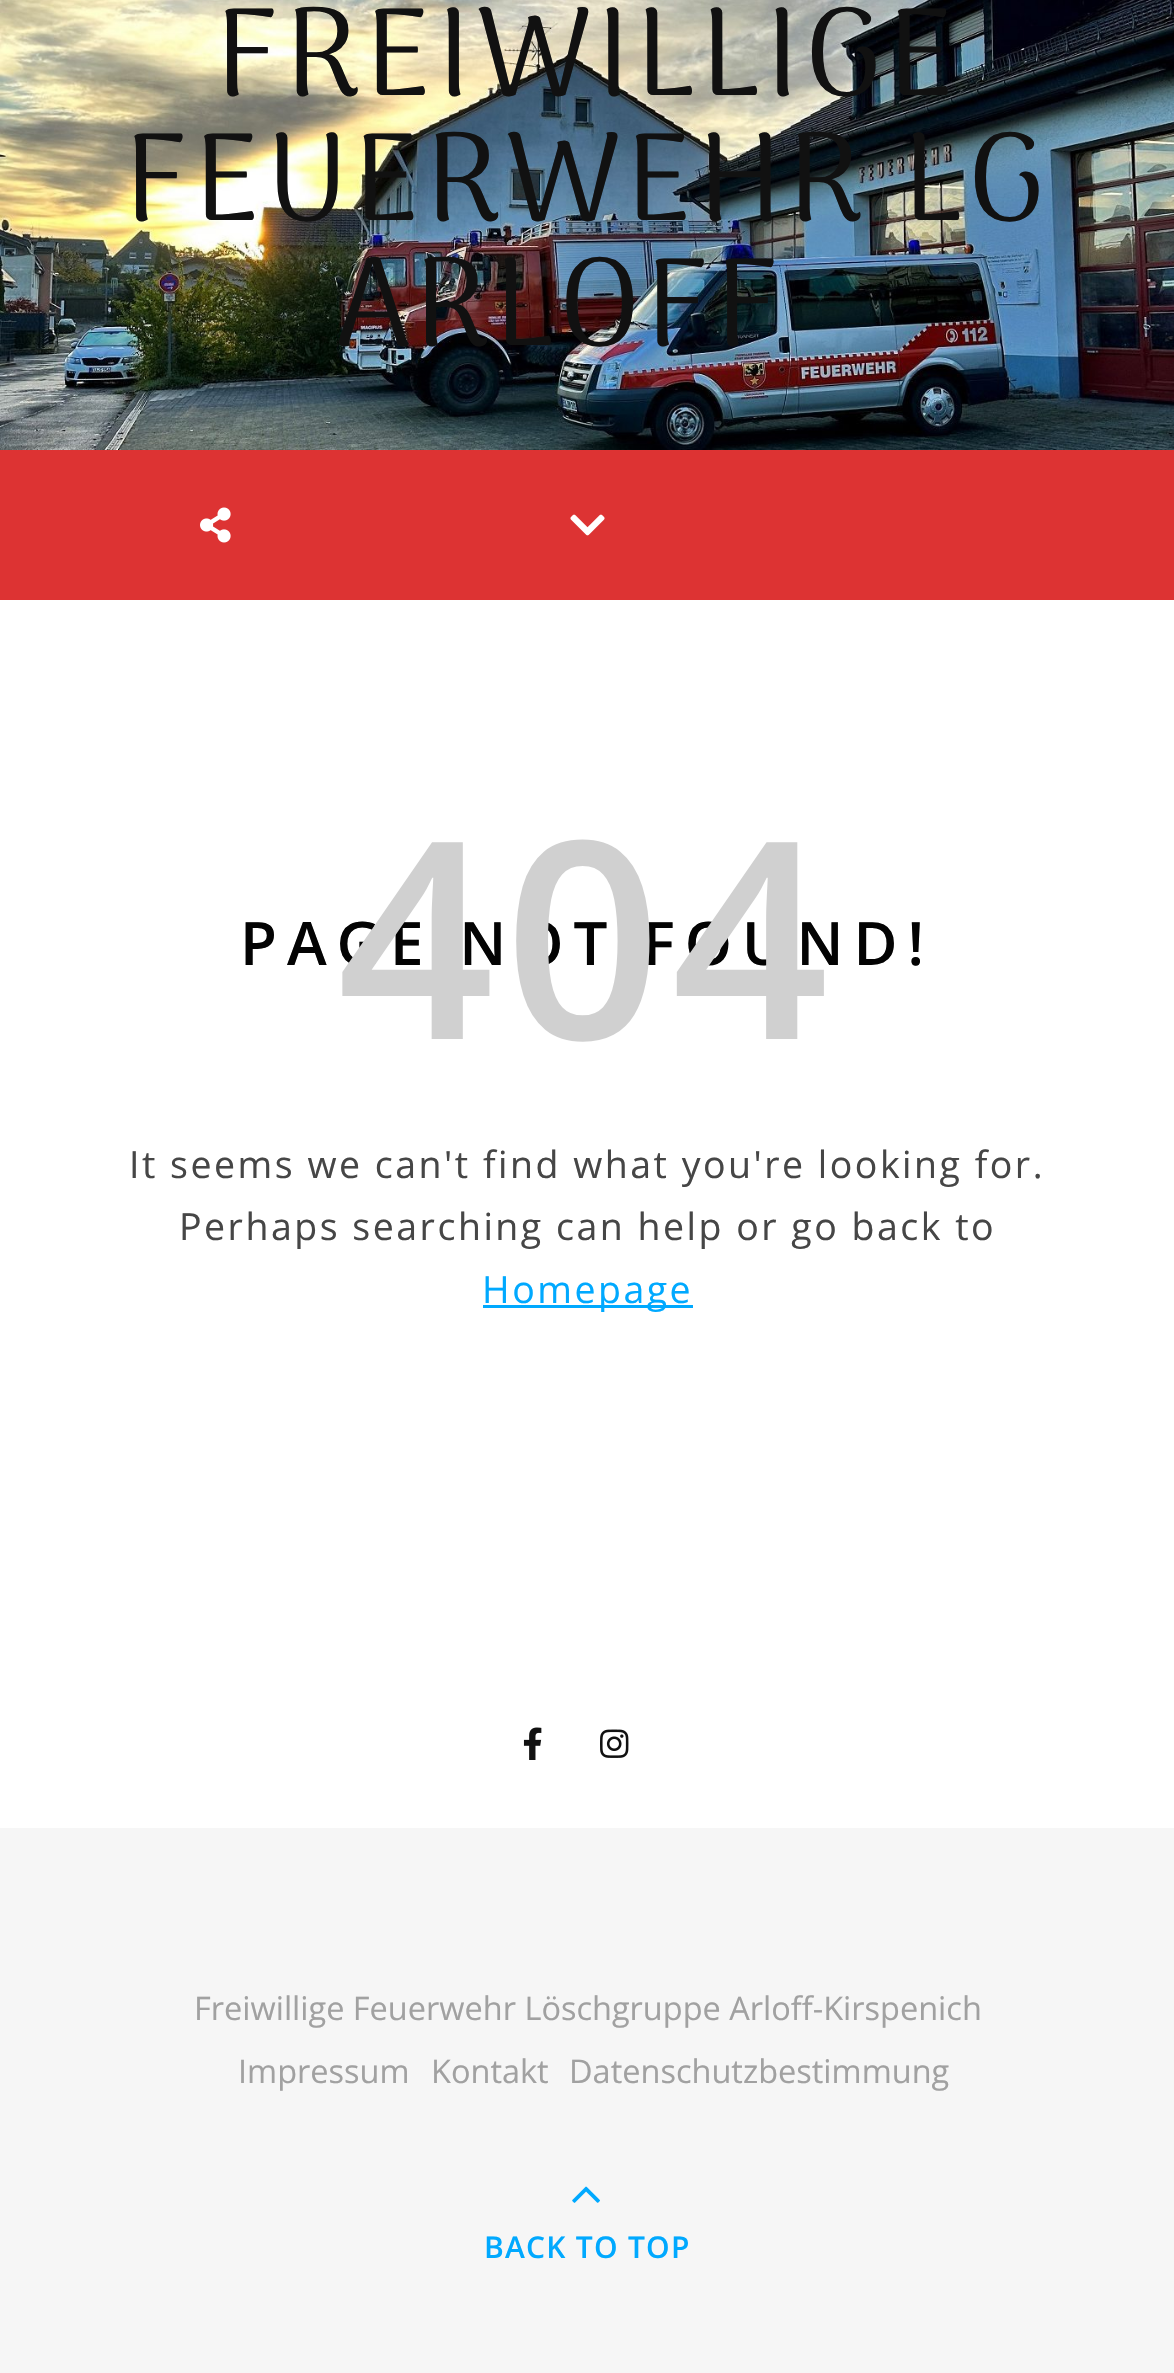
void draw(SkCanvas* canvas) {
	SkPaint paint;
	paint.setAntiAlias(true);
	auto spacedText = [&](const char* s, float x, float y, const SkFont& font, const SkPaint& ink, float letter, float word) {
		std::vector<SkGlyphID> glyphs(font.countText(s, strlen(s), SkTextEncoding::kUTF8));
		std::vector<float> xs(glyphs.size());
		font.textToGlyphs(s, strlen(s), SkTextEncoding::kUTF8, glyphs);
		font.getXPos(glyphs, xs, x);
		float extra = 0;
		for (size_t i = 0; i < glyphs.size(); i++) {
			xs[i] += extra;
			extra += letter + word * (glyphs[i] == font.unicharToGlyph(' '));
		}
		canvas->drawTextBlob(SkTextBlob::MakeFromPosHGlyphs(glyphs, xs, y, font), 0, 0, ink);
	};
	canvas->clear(0xffffffff);
	canvas->drawImageRect(SkImages::DeferredFromEncodedData(SkData::MakeFromFileName("img1.png")), SkRect::MakeXYWH(0, 0, 1174, 450), SkSamplingOptions());
	SkFont f1(fontMgr->matchFamilyStyle("Arima", SkFontStyle::Normal()), 125);
	f1.setSubpixel(true);
	paint.setColor(0xff111111);
	spacedText("FREIWILLIGE", 215, 95, f1, paint, 5, 0);
	spacedText("FEUERWEHR LG", 124, 220, f1, paint, 5, 0);
	spacedText("ARLOFF", 335, 345, f1, paint, 5, 0);
	paint.setColor(0xffdd3333);
	canvas->drawRect(SkRect::MakeXYWH(0, 450, 1174, 150), paint);
	canvas->drawImageRect(SkImages::DeferredFromEncodedData(SkData::MakeFromFileName("img2.png")), SkRect::MakeXYWH(200, 507, 31, 36), SkSamplingOptions());
	canvas->drawImageRect(SkImages::DeferredFromEncodedData(SkData::MakeFromFileName("img3.png")), SkRect::MakeXYWH(570, 514, 35, 22), SkSamplingOptions());
	SkFont f2(fontMgr->matchFamilyStyle("Open Sans", SkFontStyle(600, SkFontStyle::kNormal_Width, SkFontStyle::kUpright_Slant)), 60);
	f2.setSubpixel(true);
	paint.setColor(0xff030303);
	spacedText("PAGE NOT FOUND!", 240, 965, f2, paint, 10, 0);
	SkFont f3(fontMgr->matchFamilyStyle("Open Sans", SkFontStyle(600, SkFontStyle::kNormal_Width, SkFontStyle::kUpright_Slant)), 275);
	f3.setSubpixel(true);
	paint.setColor(0xffd0d0d0);
	spacedText("404", 337, 1039, f3, paint, 10, 0);
	SkFont f4(fontMgr->matchFamilyStyle("Open Sans", SkFontStyle::Normal()), 37.5);
	f4.setSubpixel(true);
	paint.setColor(0xff464646);
	spacedText("It seems we can't find what you're looking for.", 129, 1178, f4, paint, 2.5, 0);
	spacedText("Perhaps searching can help or go back to", 179, 1240, f4, paint, 2.5, 0);
	paint.setColor(0xff00a9ff);
	canvas->drawRect(SkRect::MakeXYWH(483, 1305, 210, 3), paint);
	spacedText("Homepage", 482, 1303, f4, paint, 2.5, 0);
	canvas->drawImageRect(SkImages::DeferredFromEncodedData(SkData::MakeFromFileName("img4.png")), SkRect::MakeXYWH(523, 1727, 19, 33), SkSamplingOptions());
	canvas->drawImageRect(SkImages::DeferredFromEncodedData(SkData::MakeFromFileName("img5.png")), SkRect::MakeXYWH(600, 1729, 29, 29), SkSamplingOptions());
	paint.setColor(0xfff6f6f6);
	canvas->drawRect(SkRect::MakeXYWH(0, 1828, 1174, 545), paint);
	SkFont f5(fontMgr->matchFamilyStyle("Open Sans", SkFontStyle::Normal()), 32.5);
	f5.setSubpixel(true);
	paint.setColor(0xffa1a1a1);
	canvas->drawString("Freiwillige Feuerwehr Löschgruppe Arloff-Kirspenich", 194, 2020, f5, paint);
	canvas->drawString("Impressum", 238, 2083, f5, paint);
	canvas->drawString("Kontakt", 431, 2083, f5, paint);
	canvas->drawString("Datenschutzbestimmung", 569, 2083, f5, paint);
	canvas->drawImageRect(SkImages::DeferredFromEncodedData(SkData::MakeFromFileName("img6.png")), SkRect::MakeXYWH(572, 2186, 28, 17), SkSamplingOptions());
	SkFont f6(fontMgr->matchFamilyStyle("Open Sans", SkFontStyle(600, SkFontStyle::kNormal_Width, SkFontStyle::kUpright_Slant)), 30);
	f6.setSubpixel(true);
	paint.setColor(0xff00a9ff);
	spacedText("BACK TO TOP", 484, 2258, f6, paint, 1.25, 0);
}
